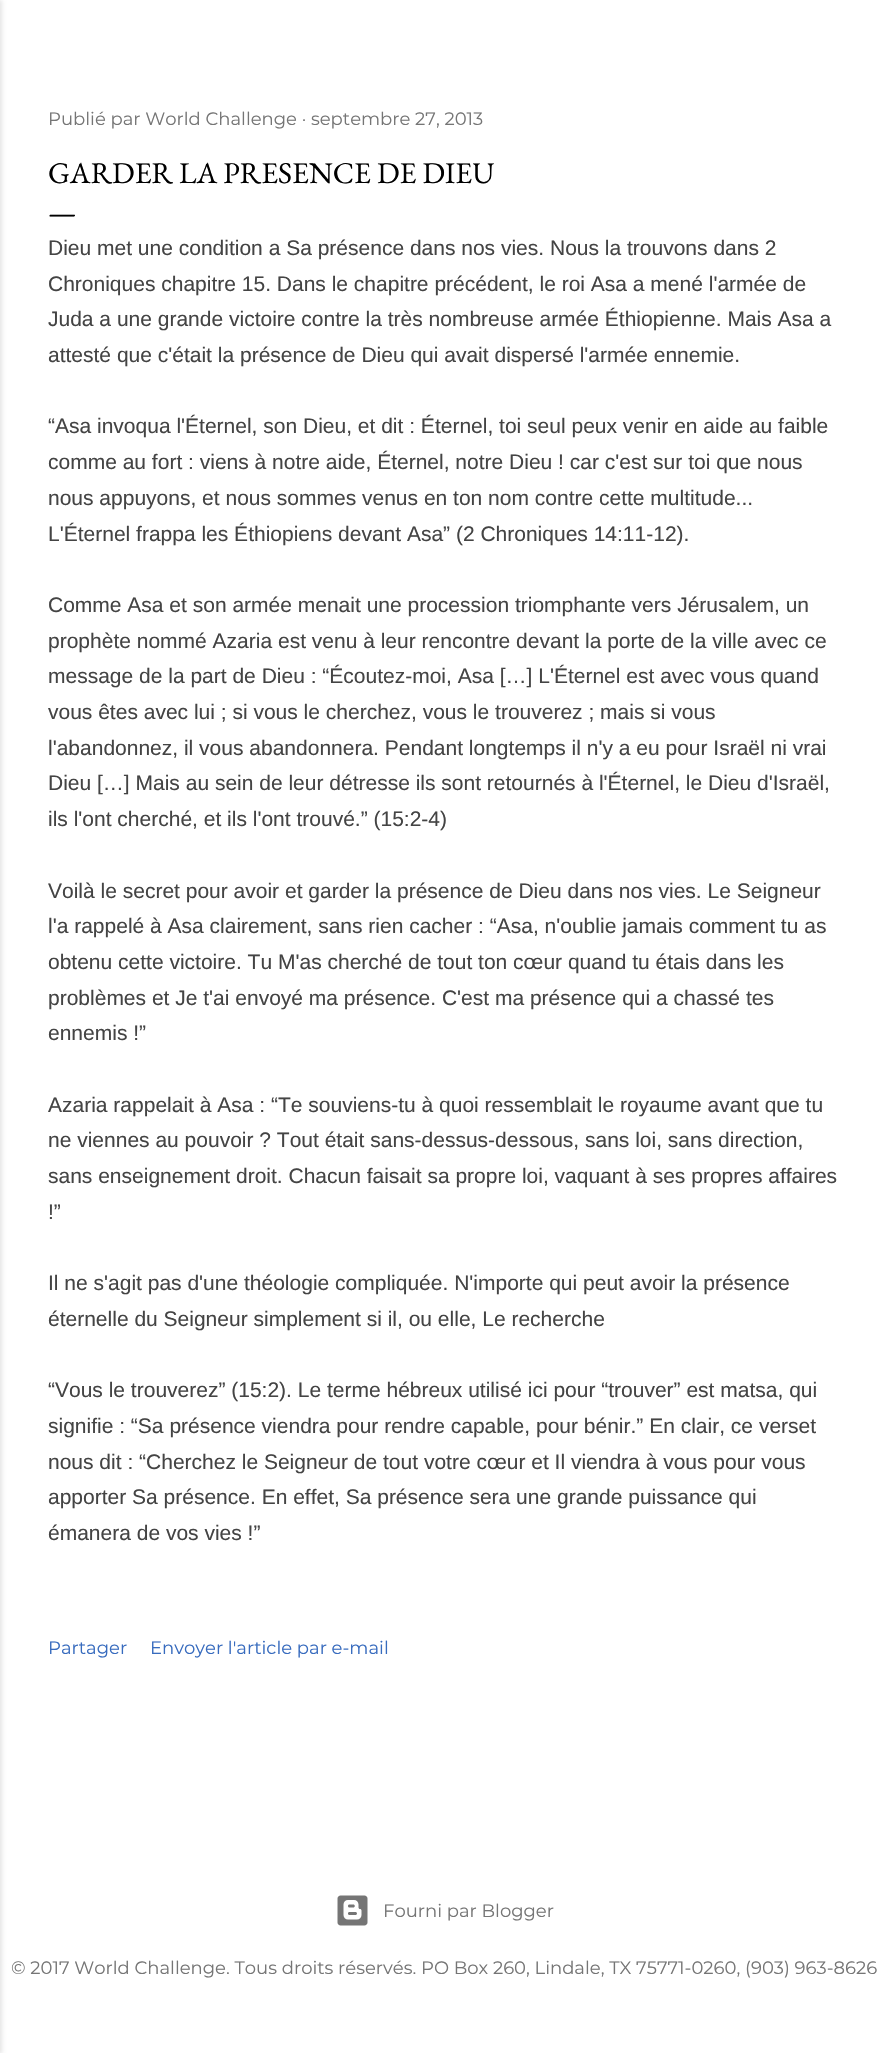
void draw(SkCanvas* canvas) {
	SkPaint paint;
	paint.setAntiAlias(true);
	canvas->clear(0xffffffff);
	paint.setColor(0x1a000000);
	paint.setMaskFilter(SkMaskFilter::MakeBlur(kNormal_SkBlurStyle, 2));
	canvas->drawRect(SkRect::MakeXYWH(-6, 0, 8, 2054), paint);
	paint.setMaskFilter(nullptr);
	SkFont f1(fontMgr->matchFamilyStyle("Montserrat", SkFontStyle::Normal()), 18);
	f1.setSubpixel(true);
	paint.setColor(0xff757575);
	canvas->drawString("Publié par World Challenge · septembre 27, 2013", 48, 125, f1, paint);
	SkFont f2(fontMgr->matchFamilyStyle("EB Garamond", SkFontStyle::Normal()), 30);
	f2.setSubpixel(true);
	paint.setColor(0xff000000);
	canvas->drawString("GARDER LA PRESENCE DE DIEU", 48, 183, f2, paint);
	canvas->drawString("—", 48, 222, f2, paint);
	SkFont f3(fontMgr->matchFamilyStyle("Liberation Sans", SkFontStyle::Normal()), 21);
	f3.setSubpixel(true);
	paint.setColor(0xff444444);
	canvas->drawString("Dieu met une condition a Sa présence dans nos vies. Nous la trouvons dans 2", 48, 255, f3, paint);
	canvas->drawString("Chroniques chapitre 15. Dans le chapitre précédent, le roi Asa a mené l'armée de", 48, 291, f3, paint);
	canvas->drawString("Juda a une grande victoire contre la très nombreuse armée Éthiopienne. Mais Asa a", 48, 326, f3, paint);
	canvas->drawString("attesté que c'était la présence de Dieu qui avait dispersé l'armée ennemie.", 48, 362, f3, paint);
	canvas->drawString("“Asa invoqua l'Éternel, son Dieu, et dit : Éternel, toi seul peux venir en aide au faible", 48, 433, f3, paint);
	canvas->drawString("comme au fort : viens à notre aide, Éternel, notre Dieu ! car c'est sur toi que nous", 48, 469, f3, paint);
	canvas->drawString("nous appuyons, et nous sommes venus en ton nom contre cette multitude...", 48, 505, f3, paint);
	canvas->drawString("L'Éternel frappa les Éthiopiens devant Asa” (2 Chroniques 14:11-12).", 48, 541, f3, paint);
	canvas->drawString("Comme Asa et son armée menait une procession triomphante vers Jérusalem, un", 48, 612, f3, paint);
	canvas->drawString("prophète nommé Azaria est venu à leur rencontre devant la porte de la ville avec ce", 48, 648, f3, paint);
	canvas->drawString("message de la part de Dieu : “Écoutez-moi, Asa […] L'Éternel est avec vous quand", 48, 683, f3, paint);
	canvas->drawString("vous êtes avec lui ; si vous le cherchez, vous le trouverez ; mais si vous", 48, 719, f3, paint);
	canvas->drawString("l'abandonnez, il vous abandonnera. Pendant longtemps il n'y a eu pour Israël ni vrai", 48, 755, f3, paint);
	canvas->drawString("Dieu […] Mais au sein de leur détresse ils sont retournés à l'Éternel, le Dieu d'Israël,", 48, 790, f3, paint);
	canvas->drawString("ils l'ont cherché, et ils l'ont trouvé.” (15:2-4)", 48, 826, f3, paint);
	canvas->drawString("Voilà le secret pour avoir et garder la présence de Dieu dans nos vies. Le Seigneur", 48, 898, f3, paint);
	canvas->drawString("l'a rappelé à Asa clairement, sans rien cacher : “Asa, n'oublie jamais comment tu as", 48, 933, f3, paint);
	canvas->drawString("obtenu cette victoire. Tu M'as cherché de tout ton cœur quand tu étais dans les", 48, 969, f3, paint);
	canvas->drawString("problèmes et Je t'ai envoyé ma présence. C'est ma présence qui a chassé tes", 48, 1005, f3, paint);
	canvas->drawString("ennemis !”", 48, 1040, f3, paint);
	canvas->drawString("Azaria rappelait à Asa : “Te souviens-tu à quoi ressemblait le royaume avant que tu", 48, 1112, f3, paint);
	canvas->drawString("ne viennes au pouvoir ? Tout était sans-dessus-dessous, sans loi, sans direction,", 48, 1147, f3, paint);
	canvas->drawString("sans enseignement droit. Chacun faisait sa propre loi, vaquant à ses propres affaires", 48, 1183, f3, paint);
	canvas->drawString("!”", 48, 1219, f3, paint);
	canvas->drawString("Il ne s'agit pas d'une théologie compliquée. N'importe qui peut avoir la présence", 48, 1290, f3, paint);
	canvas->drawString("éternelle du Seigneur simplement si il, ou elle, Le recherche", 48, 1326, f3, paint);
	canvas->drawString("“Vous le trouverez” (15:2). Le terme hébreux utilisé ici pour “trouver” est matsa, qui", 48, 1397, f3, paint);
	canvas->drawString("signifie : “Sa présence viendra pour rendre capable, pour bénir.” En clair, ce verset", 48, 1433, f3, paint);
	canvas->drawString("nous dit : “Cherchez le Seigneur de tout votre cœur et Il viendra à vous pour vous", 48, 1469, f3, paint);
	canvas->drawString("apporter Sa présence. En effet, Sa présence sera une grande puissance qui", 48, 1504, f3, paint);
	canvas->drawString("émanera de vos vies !”", 48, 1540, f3, paint);
	paint.setColor(0xff376bbe);
	canvas->drawString("Partager", 48, 1654, f1, paint);
	canvas->drawString("Envoyer l'article par e-mail", 150, 1654, f1, paint);
	canvas->drawImageRect(SkImages::DeferredFromEncodedData(SkData::MakeFromFileName("img1.png")), SkRect::MakeXYWH(337, 1895, 31, 31), SkSamplingOptions());
	paint.setColor(0xff757575);
	canvas->drawString("Fourni par Blogger", 383, 1917, f1, paint);
	canvas->drawString("© 2017 World Challenge. Tous droits réservés. PO Box 260, Lindale, TX 75771-0260, (903) 963-8626", 11, 1974, f1, paint);
}
